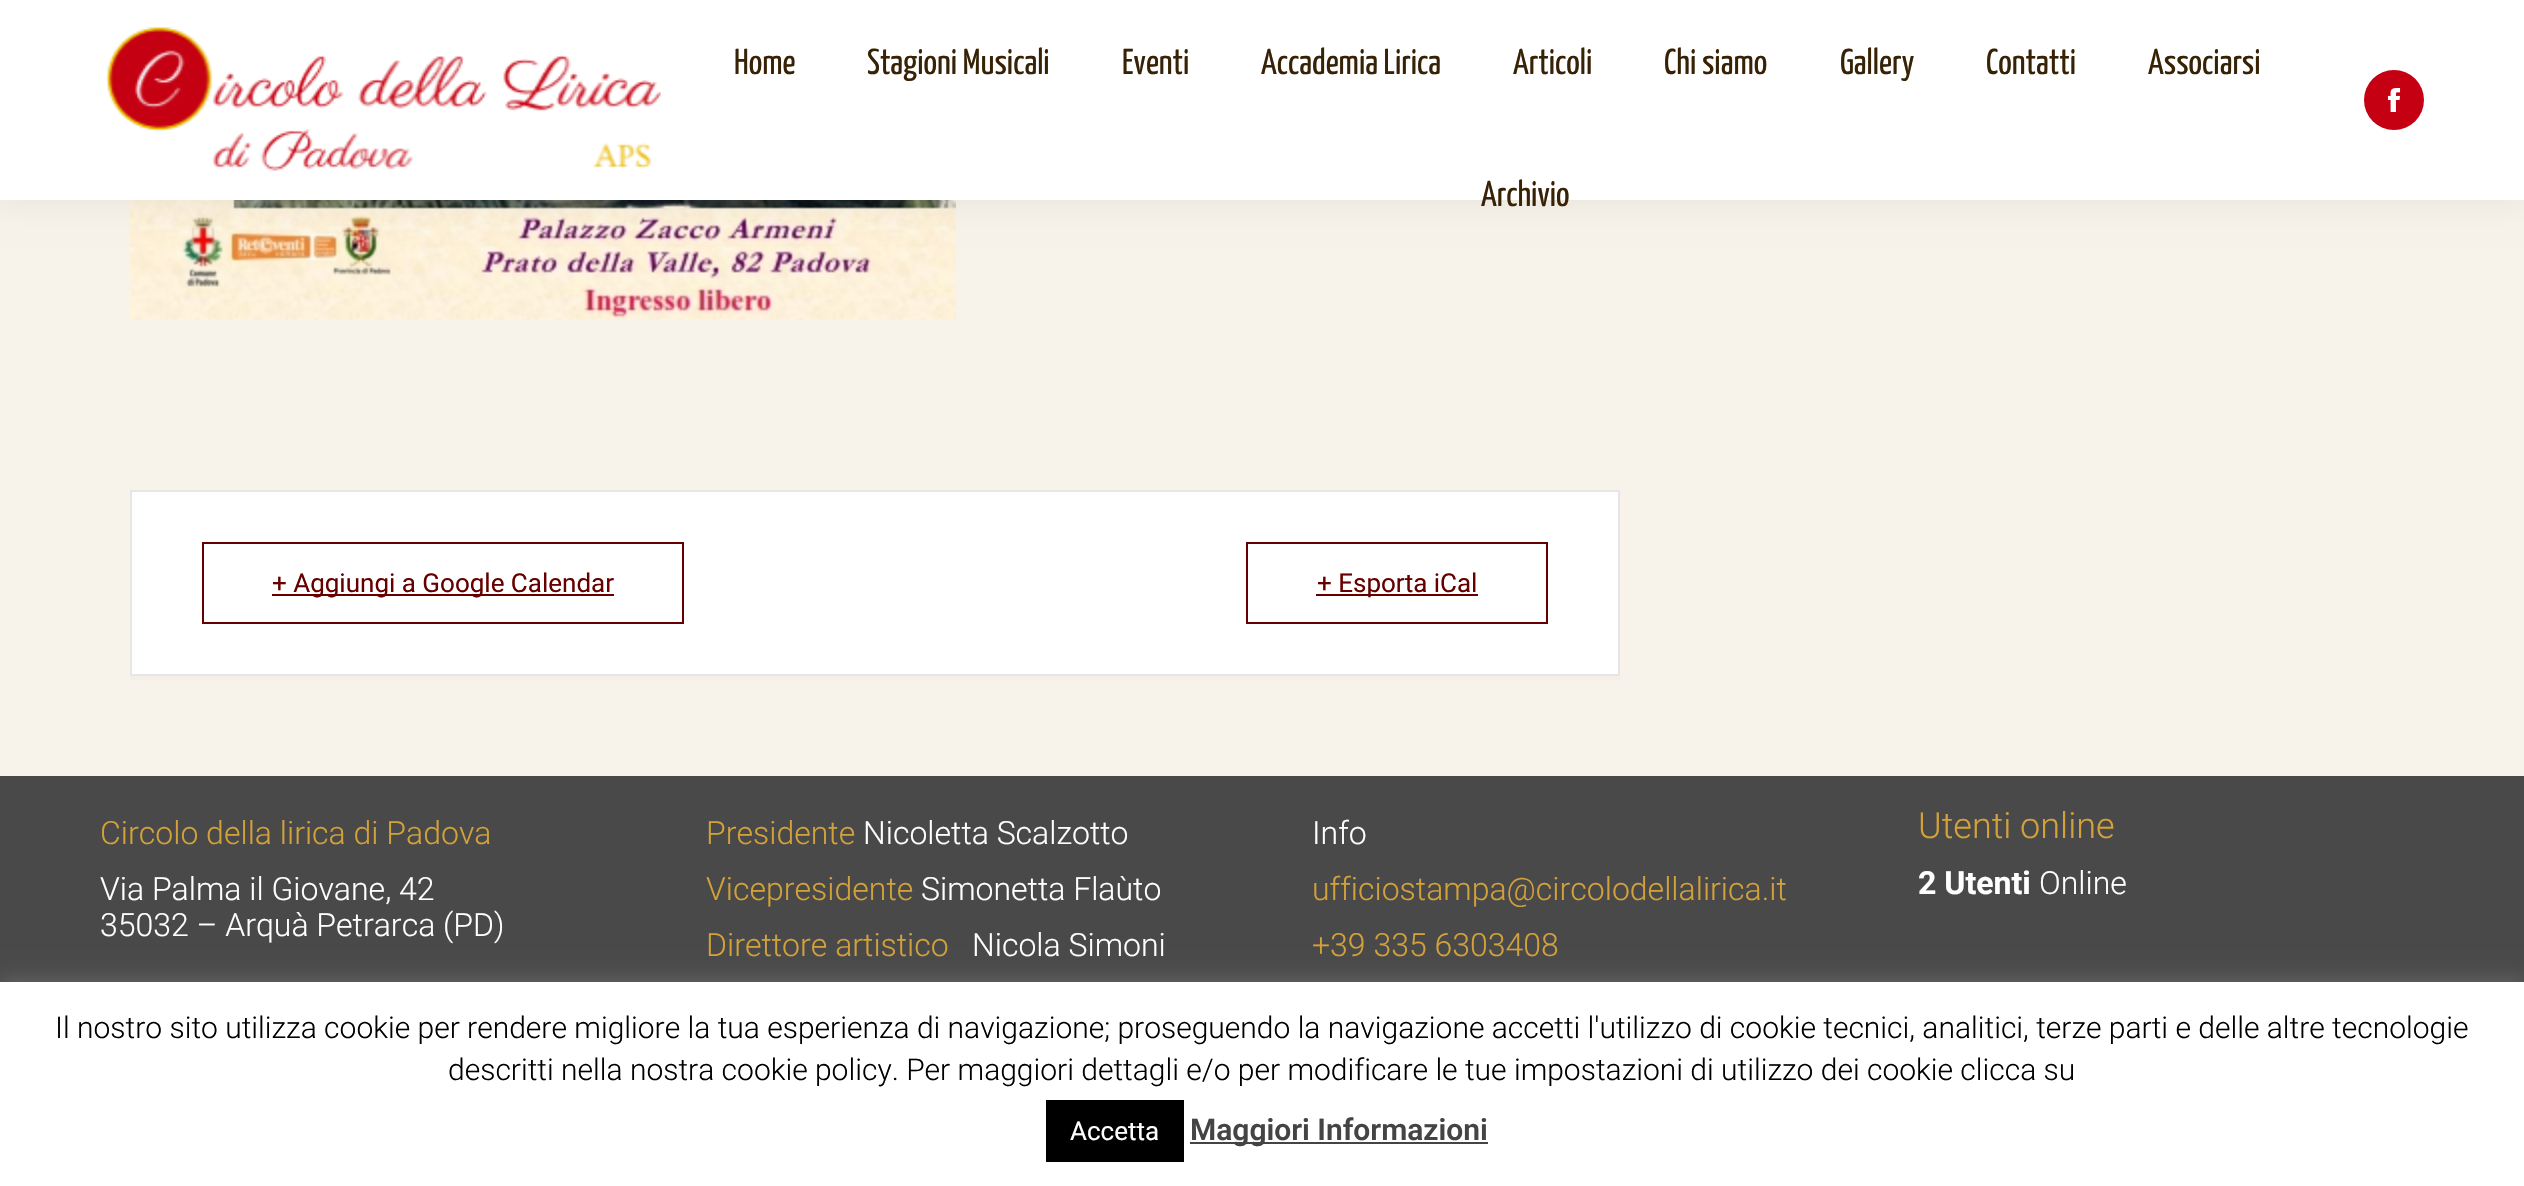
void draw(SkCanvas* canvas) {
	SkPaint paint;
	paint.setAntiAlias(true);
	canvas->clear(0xfff8f3ea);
	canvas->drawImageRect(SkImages::DeferredFromEncodedData(SkData::MakeFromFileName("img3.png")), SkRect::MakeXYWH(130, 200, 826, 120), SkSamplingOptions());
	paint.setColor(0x12000000);
	paint.setMaskFilter(SkMaskFilter::MakeBlur(kNormal_SkBlurStyle, 15));
	canvas->drawRect(SkRect::MakeXYWH(-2, -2, 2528, 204), paint);
	paint.setMaskFilter(nullptr);
	paint.setColor(0xffffffff);
	canvas->drawRect(SkRect::MakeXYWH(0, 0, 2524, 200), paint);
	canvas->drawImageRect(SkImages::DeferredFromEncodedData(SkData::MakeFromFileName("img1.png")), SkRect::MakeXYWH(105, 27, 557, 144), SkSamplingOptions());
	SkFont f1(fontMgr->matchFamilyStyle("Yanone Kaffeesatz", SkFontStyle::Normal()), 36);
	f1.setSubpixel(true);
	paint.setColor(0xff382206);
	canvas->drawString("Home", 734, 74, f1, paint);
	canvas->drawString("Stagioni Musicali", 867, 74, f1, paint);
	canvas->drawString("Eventi", 1122, 74, f1, paint);
	canvas->drawString("Accademia Lirica", 1261, 74, f1, paint);
	canvas->drawString("Articoli", 1513, 74, f1, paint);
	canvas->drawString("Chi siamo", 1664, 74, f1, paint);
	canvas->drawString("Gallery", 1840, 74, f1, paint);
	canvas->drawString("Contatti", 1986, 74, f1, paint);
	canvas->drawString("Associarsi", 2148, 74, f1, paint);
	canvas->drawString("Archivio", 1481, 206, f1, paint);
	paint.setColor(0xffc50012);
	canvas->drawCircle(2394, 100, 30, paint);
	canvas->drawImageRect(SkImages::DeferredFromEncodedData(SkData::MakeFromFileName("img2.png")), SkRect::MakeXYWH(2387, 88, 14, 24), SkSamplingOptions());
	paint.setColor(0xfff4efe6);
	canvas->drawRect(SkRect::MakeXYWH(130, 676, 1490, 4), paint);
	paint.setColor(0xffffffff);
	canvas->drawRect(SkRect::MakeXYWH(131, 491, 1488, 184), paint);
	paint.setStroke(true);
	paint.setStrokeWidth(2);
	paint.setColor(0xffe6e6e6);
	canvas->drawRect(SkRect::MakeXYWH(131, 491, 1488, 184), paint);
	paint.setColor(0xff660000);
	canvas->drawRect(SkRect::MakeXYWH(203, 543, 480, 80), paint);
	paint.setStroke(false);
	canvas->drawRect(SkRect::MakeXYWH(272, 594, 342, 2), paint);
	SkFont f2(fontMgr->matchFamilyStyle("Roboto", SkFontStyle::Normal()), 26);
	f2.setSubpixel(true);
	canvas->drawString("+ Aggiungi a Google Calendar", 272, 592, f2, paint);
	paint.setStroke(true);
	canvas->drawRect(SkRect::MakeXYWH(1247, 543, 300, 80), paint);
	paint.setStroke(false);
	canvas->drawRect(SkRect::MakeXYWH(1316, 594, 162, 2), paint);
	canvas->drawString("+ Esporta iCal", 1317, 592, f2, paint);
	paint.setColor(0xff494949);
	canvas->drawRect(SkRect::MakeXYWH(0, 776, 2524, 206), paint);
	SkFont f3(fontMgr->matchFamilyStyle("Roboto", SkFontStyle(300, SkFontStyle::kNormal_Width, SkFontStyle::kUpright_Slant)), 32);
	f3.setSubpixel(true);
	paint.setColor(0xffd2a13a);
	canvas->drawString("Circolo della lirica di Padova", 100, 844, f3, paint);
	paint.setColor(0xffffffff);
	canvas->drawString("Via Palma il Giovane, 42", 100, 900, f3, paint);
	canvas->drawString("35032 – Arquà Petrarca (PD)", 100, 936, f3, paint);
	paint.setColor(0xffd2a13a);
	canvas->drawString("Presidente", 706, 844, f3, paint);
	paint.setColor(0xffffffff);
	canvas->drawString("Nicoletta Scalzotto", 863, 844, f3, paint);
	paint.setColor(0xffd2a13a);
	canvas->drawString("Vicepresidente", 706, 900, f3, paint);
	paint.setColor(0xffffffff);
	canvas->drawString("Simonetta Flaùto", 921, 900, f3, paint);
	paint.setColor(0xffd2a13a);
	canvas->drawString("Direttore artistico", 706, 956, f3, paint);
	paint.setColor(0xffffffff);
	canvas->drawString("Nicola Simoni", 972, 956, f3, paint);
	canvas->drawString("Info", 1312, 844, f3, paint);
	paint.setColor(0xffd2a13a);
	canvas->drawString("ufficiostampa@circolodellalirica.it", 1312, 900, f3, paint);
	canvas->drawString("+39 335 6303408", 1312, 956, f3, paint);
	SkFont f4(fontMgr->matchFamilyStyle("Roboto", SkFontStyle(300, SkFontStyle::kNormal_Width, SkFontStyle::kUpright_Slant)), 36);
	f4.setSubpixel(true);
	canvas->drawString("Utenti online", 1918, 838, f4, paint);
	SkFont f5(fontMgr->matchFamilyStyle("Roboto", SkFontStyle::Bold()), 32);
	f5.setSubpixel(true);
	paint.setColor(0xffffffff);
	canvas->drawString("2 Utenti", 1918, 894, f5, paint);
	canvas->drawString("Online", 2039, 894, f3, paint);
	paint.setColor(0x4dacabab);
	paint.setMaskFilter(SkMaskFilter::MakeBlur(kNormal_SkBlurStyle, 10));
	canvas->drawRect(SkRect::MakeXYWH(0, 980, 2524, 204), paint);
	paint.setMaskFilter(nullptr);
	paint.setColor(0xffffffff);
	canvas->drawRect(SkRect::MakeXYWH(0, 982, 2524, 204), paint);
	SkFont f6(fontMgr->matchFamilyStyle("Roboto", SkFontStyle(300, SkFontStyle::kNormal_Width, SkFontStyle::kUpright_Slant)), 30);
	f6.setSubpixel(true);
	paint.setColor(0xff000000);
	canvas->drawString("Il nostro sito utilizza cookie per rendere migliore la tua esperienza di navigazione; proseguendo la navigazione accetti l'utilizzo di cookie tecnici, analitici, terze parti e delle altre tecnologie", 55, 1038, f6, paint);
	canvas->drawString("descritti nella nostra cookie policy. Per maggiori dettagli e/o per modificare le tue impostazioni di utilizzo dei cookie clicca su", 448, 1080, f6, paint);
	canvas->drawRect(SkRect::MakeXYWH(1046, 1100, 138, 62), paint);
	paint.setColor(0xffffffff);
	canvas->drawString("Accetta", 1070, 1140, f2, paint);
	paint.setColor(0xff444444);
	canvas->drawRect(SkRect::MakeXYWH(1190, 1142, 298, 2), paint);
	SkFont f7(fontMgr->matchFamilyStyle("Roboto", SkFontStyle(600, SkFontStyle::kNormal_Width, SkFontStyle::kUpright_Slant)), 30);
	f7.setSubpixel(true);
	canvas->drawString("Maggiori Informazioni", 1190, 1140, f7, paint);
}
